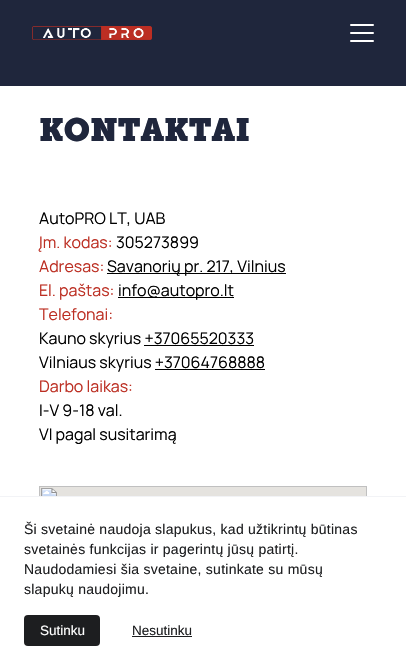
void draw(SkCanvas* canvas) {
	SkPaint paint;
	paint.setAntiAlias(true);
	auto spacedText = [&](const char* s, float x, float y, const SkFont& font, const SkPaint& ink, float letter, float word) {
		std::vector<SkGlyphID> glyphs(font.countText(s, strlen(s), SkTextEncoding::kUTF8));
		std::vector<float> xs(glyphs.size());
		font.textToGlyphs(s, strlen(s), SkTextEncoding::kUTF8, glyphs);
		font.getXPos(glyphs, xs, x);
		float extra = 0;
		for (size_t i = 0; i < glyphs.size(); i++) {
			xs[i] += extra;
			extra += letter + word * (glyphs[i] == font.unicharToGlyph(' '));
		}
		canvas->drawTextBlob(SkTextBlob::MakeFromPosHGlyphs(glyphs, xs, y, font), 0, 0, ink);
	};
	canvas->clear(0xffffffff);
	paint.setColor(0xff1f263c);
	canvas->drawRect(SkRect::MakeXYWH(0, 0, 406, 86), paint);
	canvas->drawImageRect(SkImages::DeferredFromEncodedData(SkData::MakeFromFileName("img1.png")), SkRect::MakeXYWH(32, 26, 120, 14), SkSamplingOptions());
	paint.setColor(0xffffffff);
	canvas->drawRoundRect(SkRect::MakeXYWH(350, 24, 24, 2), 1, 1, paint);
	canvas->drawRoundRect(SkRect::MakeXYWH(350, 32, 24, 2), 1, 1, paint);
	canvas->drawRoundRect(SkRect::MakeXYWH(350, 40, 24, 2), 1, 1, paint);
	SkFont f1(fontMgr->matchFamilyStyle("Museo Slab", SkFontStyle::Normal()), 32);
	f1.setSubpixel(true);
	paint.setColor(0xff1f263c);
	canvas->drawString("KONTAKTAI", 39, 141, f1, paint);
	SkFont f2(fontMgr->matchFamilyStyle("Manrope", SkFontStyle(200, SkFontStyle::kNormal_Width, SkFontStyle::kUpright_Slant)), 16);
	f2.setSubpixel(true);
	paint.setColor(0xff000000);
	canvas->drawString("AutoPRO LT, UAB", 39, 224, f2, paint);
	paint.setColor(0xffbc2e22);
	canvas->drawString("Įm. kodas:", 39, 248, f2, paint);
	paint.setColor(0xff000000);
	canvas->drawString("305273899", 116, 248, f2, paint);
	paint.setColor(0xffbc2e22);
	canvas->drawString("Adresas:", 39, 272, f2, paint);
	paint.setColor(0xff000000);
	canvas->drawRect(SkRect::MakeXYWH(107, 273, 179, 1), paint);
	canvas->drawString("Savanorių pr. 217, Vilnius", 107, 272, f2, paint);
	paint.setColor(0xffbc2e22);
	canvas->drawString("El. paštas:", 39, 296, f2, paint);
	paint.setColor(0xff000000);
	canvas->drawRect(SkRect::MakeXYWH(118, 297, 116, 1), paint);
	canvas->drawString("info@autopro.lt", 118, 296, f2, paint);
	paint.setColor(0xffbc2e22);
	canvas->drawString("Telefonai:", 39, 320, f2, paint);
	paint.setColor(0xff000000);
	canvas->drawString("Kauno skyrius +37065520333", 39, 344, f2, paint);
	canvas->drawRect(SkRect::MakeXYWH(144, 345, 110, 1), paint);
	canvas->drawString("Vilniaus skyrius +37064768888", 39, 368, f2, paint);
	canvas->drawRect(SkRect::MakeXYWH(155, 369, 110, 1), paint);
	paint.setColor(0xffbc2e22);
	canvas->drawString("Darbo laikas:", 39, 392, f2, paint);
	paint.setColor(0xff000000);
	canvas->drawString("I-V 9-18 val.", 39, 416, f2, paint);
	canvas->drawString("VI pagal susitarimą", 39, 440, f2, paint);
	canvas->drawImageRect(SkImages::DeferredFromEncodedData(SkData::MakeFromFileName("img2.png")), SkRect::MakeXYWH(39, 486, 328, 10), SkSamplingOptions());
	paint.setColor(0xfff2f3f6);
	canvas->drawRect(SkRect::MakeXYWH(0, 496, 406, 1), paint);
	SkFont f3(fontMgr->matchFamilyStyle("Liberation Sans", SkFontStyle::Normal()), 14);
	f3.setSubpixel(true);
	paint.setColor(0xff1d1e20);
	spacedText("Ši svetainė naudoja slapukus, kad užtikrintų būtinas", 24, 534, f3, paint, 0.25, 0);
	spacedText("svetainės funkcijas ir pagerintų jūsų patirtį.", 24, 554, f3, paint, 0.25, 0);
	spacedText("Naudodamiesi šia svetaine, sutinkate su mūsų", 24, 574, f3, paint, 0.25, 0);
	spacedText("slapukų naudojimu.", 24, 594, f3, paint, 0.25, 0);
	canvas->drawRoundRect(SkRect::MakeXYWH(24, 615, 76, 31), 4, 4, paint);
	SkFont f4(fontMgr->matchFamilyStyle("Liberation Sans", SkFontStyle::Normal()), 13.5);
	f4.setSubpixel(true);
	paint.setColor(0xffffffff);
	canvas->drawString("Sutinku", 40, 635, f4, paint);
	paint.setColor(0xff1d1e20);
	canvas->drawString("Nesutinku", 132, 635, f4, paint);
	canvas->drawRect(SkRect::MakeXYWH(132, 636, 60, 1), paint);
}
